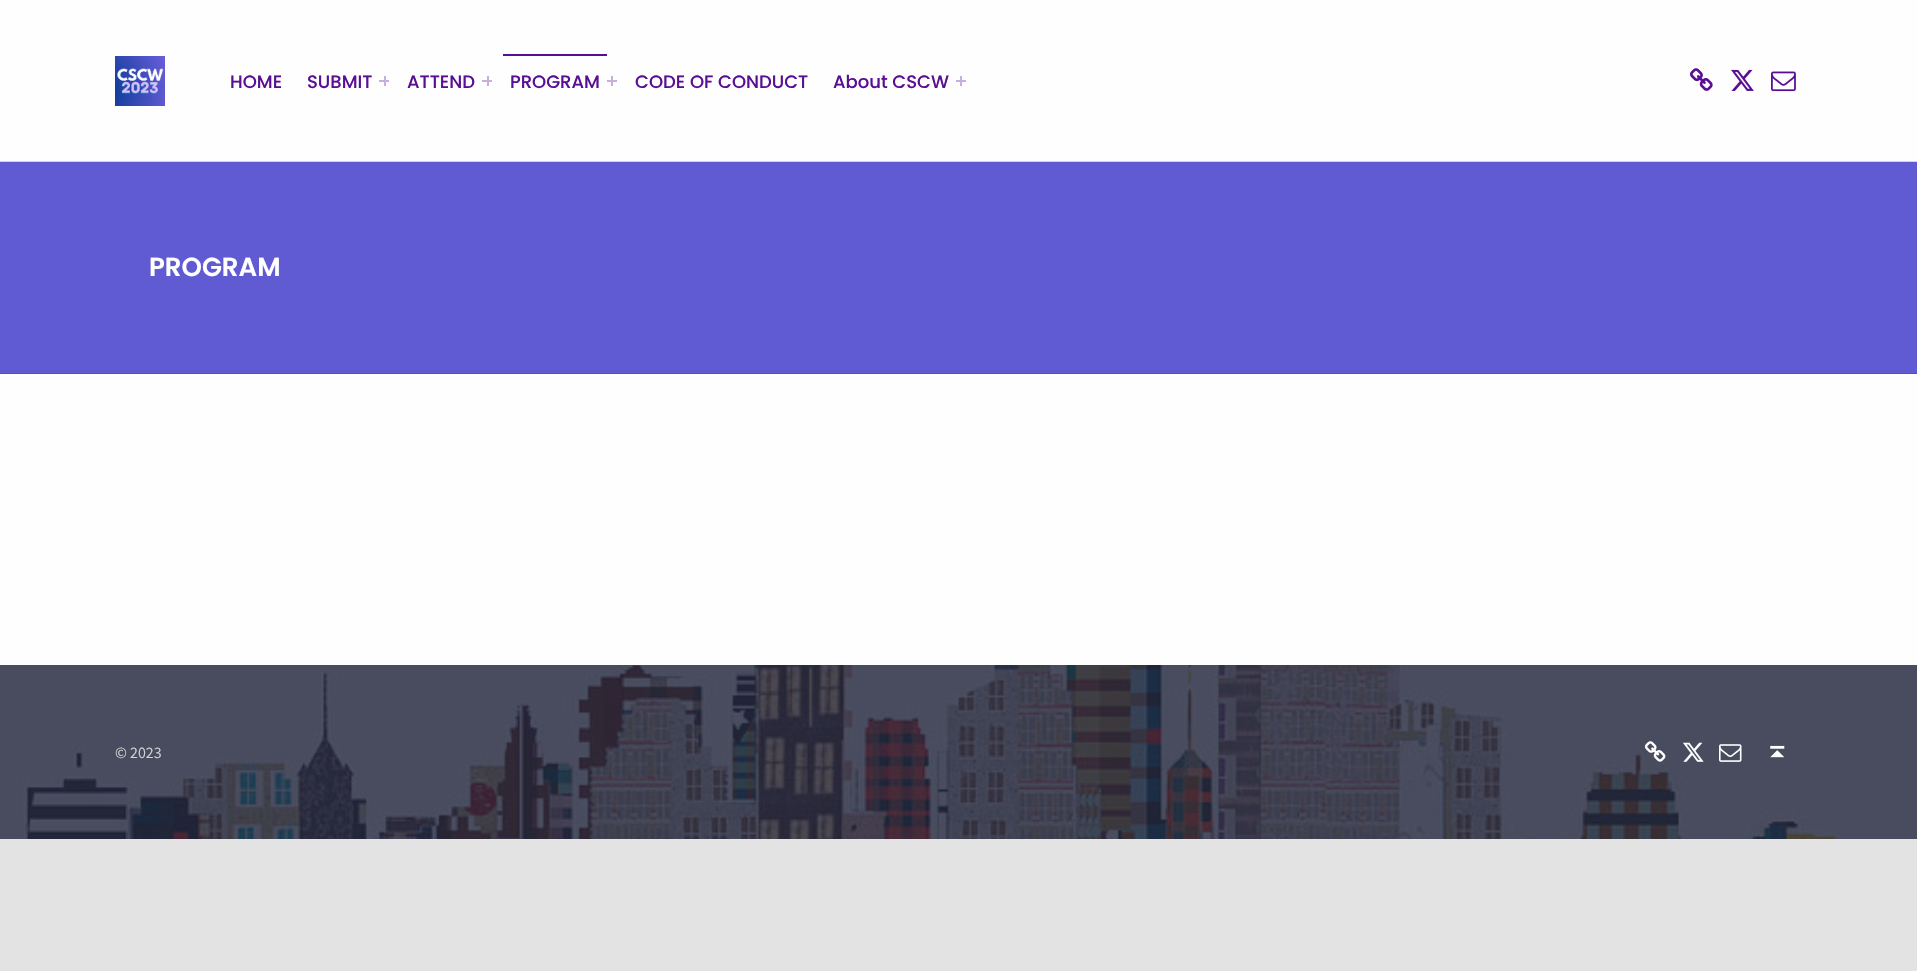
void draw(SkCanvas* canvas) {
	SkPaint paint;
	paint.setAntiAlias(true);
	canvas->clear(0xffe3e3e4);
	paint.setColor(0xfffefeff);
	canvas->drawRect(SkRect::MakeXYWH(0, 0, 1917, 665), paint);
	paint.setColor(0xffddcee9);
	canvas->drawRect(SkRect::MakeXYWH(0, 161, 1917, 1), paint);
	canvas->drawImageRect(SkImages::DeferredFromEncodedData(SkData::MakeFromFileName("img1.png")), SkRect::MakeXYWH(115, 56, 50, 50), SkSamplingOptions());
	SkFont f1(fontMgr->matchFamilyStyle("Poppins", SkFontStyle(500, SkFontStyle::kNormal_Width, SkFontStyle::kUpright_Slant)), 18);
	f1.setSubpixel(true);
	paint.setColor(0xff5a0e93);
	canvas->drawString("HOME", 230, 88, f1, paint);
	canvas->drawString("SUBMIT", 307, 88, f1, paint);
	paint.setColor(0xffc8afdb);
	canvas->drawRect(SkRect::MakeXYWH(379, 80, 10, 2), paint);
	canvas->drawRect(SkRect::MakeXYWH(384, 76, 2, 10), paint);
	paint.setColor(0xff5a0e93);
	canvas->drawString("ATTEND", 407, 88, f1, paint);
	paint.setColor(0xffc8afdb);
	canvas->drawRect(SkRect::MakeXYWH(482, 80, 10, 2), paint);
	canvas->drawRect(SkRect::MakeXYWH(487, 76, 2, 10), paint);
	paint.setColor(0xff5a0e93);
	canvas->drawRect(SkRect::MakeXYWH(503, 54, 104, 2), paint);
	canvas->drawString("PROGRAM", 510, 88, f1, paint);
	paint.setColor(0xffc8afdb);
	canvas->drawRect(SkRect::MakeXYWH(607, 80, 10, 2), paint);
	canvas->drawRect(SkRect::MakeXYWH(611, 76, 2, 10), paint);
	paint.setColor(0xff5a0e93);
	canvas->drawString("CODE OF CONDUCT", 635, 88, f1, paint);
	canvas->drawString("About CSCW", 833, 88, f1, paint);
	paint.setColor(0xffc8afdb);
	canvas->drawRect(SkRect::MakeXYWH(956, 80, 10, 2), paint);
	canvas->drawRect(SkRect::MakeXYWH(960, 76, 2, 10), paint);
	canvas->drawImageRect(SkImages::DeferredFromEncodedData(SkData::MakeFromFileName("img2.png")), SkRect::MakeXYWH(1690, 68, 23, 23), SkSamplingOptions());
	canvas->drawImageRect(SkImages::DeferredFromEncodedData(SkData::MakeFromFileName("img3.png")), SkRect::MakeXYWH(1731, 69, 23, 22), SkSamplingOptions());
	canvas->drawImageRect(SkImages::DeferredFromEncodedData(SkData::MakeFromFileName("img4.png")), SkRect::MakeXYWH(1771, 71, 25, 21), SkSamplingOptions());
	paint.setColor(0xff605bd3);
	canvas->drawRect(SkRect::MakeXYWH(0, 162, 1917, 211), paint);
	paint.setColor(0xff564bd2);
	canvas->drawRect(SkRect::MakeXYWH(0, 373, 1917, 1), paint);
	SkFont f2(fontMgr->matchFamilyStyle("Poppins", SkFontStyle(600, SkFontStyle::kNormal_Width, SkFontStyle::kUpright_Slant)), 26);
	f2.setSubpixel(true);
	paint.setColor(0xffffffff);
	canvas->drawString("PROGRAM", 149, 276, f2, paint);
	paint.setColor(0xff1d243d);
	canvas->drawRect(SkRect::MakeXYWH(0, 665, 1917, 174), paint);
	canvas->drawImageRect(SkImages::DeferredFromEncodedData(SkData::MakeFromFileName("img5.png")), SkRect::MakeXYWH(0, 665, 1917, 174), SkSamplingOptions());
	SkFont f3(fontMgr->matchFamilyStyle("Assistant", SkFontStyle::Normal()), 16);
	f3.setSubpixel(true);
	paint.setColor(0xffd3d3d4);
	canvas->drawString("© 2023", 115, 758, f3, paint);
	canvas->drawImageRect(SkImages::DeferredFromEncodedData(SkData::MakeFromFileName("img6.png")), SkRect::MakeXYWH(1644, 741, 22, 21), SkSamplingOptions());
	canvas->drawImageRect(SkImages::DeferredFromEncodedData(SkData::MakeFromFileName("img7.png")), SkRect::MakeXYWH(1683, 742, 21, 20), SkSamplingOptions());
	canvas->drawImageRect(SkImages::DeferredFromEncodedData(SkData::MakeFromFileName("img8.png")), SkRect::MakeXYWH(1719, 744, 23, 18), SkSamplingOptions());
	canvas->drawImageRect(SkImages::DeferredFromEncodedData(SkData::MakeFromFileName("img9.png")), SkRect::MakeXYWH(1770, 745, 15, 13), SkSamplingOptions());
}
